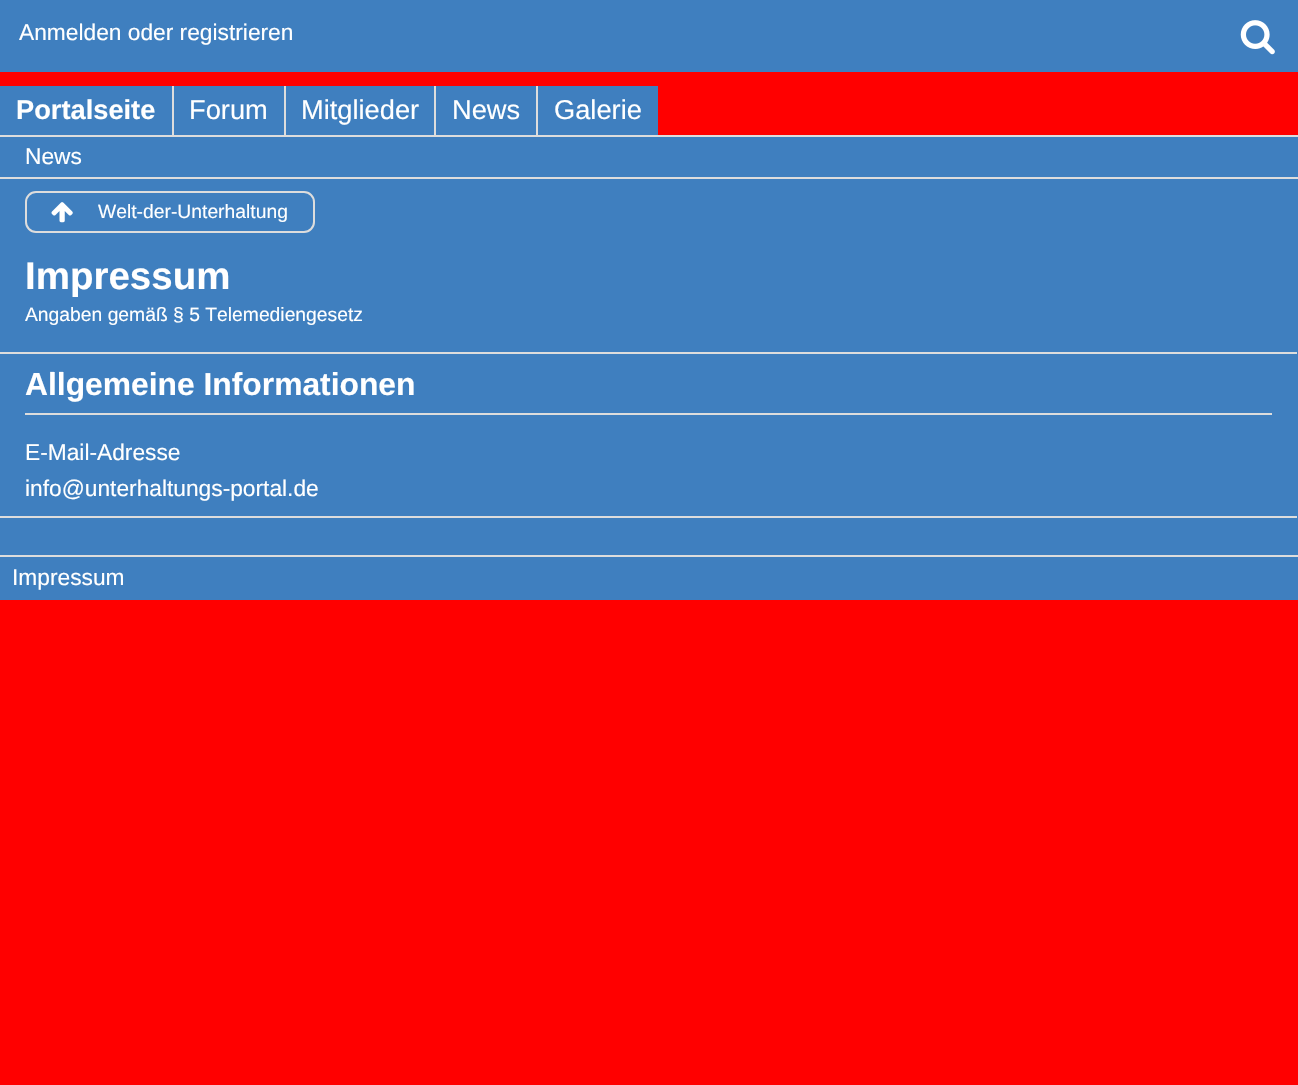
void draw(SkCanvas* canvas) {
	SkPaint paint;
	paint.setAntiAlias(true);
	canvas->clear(0xffff0000);
	paint.setColor(0xff3f7fbf);
	canvas->drawRect(SkRect::MakeXYWH(0, 0, 1298, 72), paint);
	SkFont f1(fontMgr->matchFamilyStyle("Liberation Sans", SkFontStyle::Normal()), 22.75);
	f1.setSubpixel(true);
	paint.setColor(0xffffffff);
	canvas->drawString("Anmelden oder registrieren", 19, 40, f1, paint);
	canvas->drawImageRect(SkImages::DeferredFromEncodedData(SkData::MakeFromFileName("img1.png")), SkRect::MakeXYWH(1240, 20, 35, 35), SkSamplingOptions());
	paint.setColor(0xff3f7fbf);
	canvas->drawRect(SkRect::MakeXYWH(174, 86, 484, 49), paint);
	canvas->drawRect(SkRect::MakeXYWH(0, 86, 172, 49), paint);
	paint.setColor(0xffdddddd);
	canvas->drawRect(SkRect::MakeXYWH(172, 86, 2, 51), paint);
	SkFont f2(fontMgr->matchFamilyStyle("Liberation Sans", SkFontStyle::Bold()), 27.25);
	f2.setSubpixel(true);
	paint.setColor(0xffffffff);
	canvas->drawString("Portalseite", 16, 119, f2, paint);
	paint.setColor(0xffdddddd);
	canvas->drawRect(SkRect::MakeXYWH(284, 86, 2, 49), paint);
	SkFont f3(fontMgr->matchFamilyStyle("Liberation Sans", SkFontStyle::Normal()), 27.25);
	f3.setSubpixel(true);
	paint.setColor(0xffffffff);
	canvas->drawString("Forum", 189, 119, f3, paint);
	paint.setColor(0xffdddddd);
	canvas->drawRect(SkRect::MakeXYWH(434, 86, 2, 49), paint);
	paint.setColor(0xffffffff);
	canvas->drawString("Mitglieder", 301, 119, f3, paint);
	paint.setColor(0xffdddddd);
	canvas->drawRect(SkRect::MakeXYWH(536, 86, 2, 49), paint);
	paint.setColor(0xffffffff);
	canvas->drawString("News", 452, 119, f3, paint);
	canvas->drawString("Galerie", 554, 119, f3, paint);
	paint.setColor(0xff3f7fbf);
	canvas->drawRect(SkRect::MakeXYWH(0, 137, 1298, 40), paint);
	paint.setColor(0xffdddddd);
	canvas->drawRect(SkRect::MakeXYWH(0, 135, 1298, 2), paint);
	canvas->drawRect(SkRect::MakeXYWH(0, 177, 1298, 2), paint);
	paint.setColor(0xffffffff);
	canvas->drawString("News", 25, 164, f1, paint);
	paint.setColor(0xff3f7fbf);
	canvas->drawRect(SkRect::MakeXYWH(0, 179, 1298, 376), paint);
	paint.setStroke(true);
	paint.setStrokeWidth(2);
	paint.setColor(0xffdddddd);
	canvas->drawRoundRect(SkRect::MakeXYWH(26, 192, 288, 40), 10, 10, paint);
	canvas->drawImageRect(SkImages::DeferredFromEncodedData(SkData::MakeFromFileName("img2.png")), SkRect::MakeXYWH(51, 202, 22, 21), SkSamplingOptions());
	SkFont f4(fontMgr->matchFamilyStyle("Liberation Sans", SkFontStyle::Normal()), 19.3);
	f4.setSubpixel(true);
	paint.setStroke(false);
	paint.setColor(0xffffffff);
	canvas->drawString("Welt-der-Unterhaltung", 98, 218, f4, paint);
	SkFont f5(fontMgr->matchFamilyStyle("Liberation Sans", SkFontStyle::Bold()), 38.5);
	f5.setSubpixel(true);
	canvas->drawString("Impressum", 25, 289, f5, paint);
	canvas->drawString("Angaben gemäß § 5 Telemediengesetz", 25, 321, f4, paint);
	paint.setColor(0xffdddddd);
	canvas->drawRect(SkRect::MakeXYWH(0, 352, 1297, 2), paint);
	canvas->drawRect(SkRect::MakeXYWH(0, 516, 1297, 2), paint);
	canvas->drawRect(SkRect::MakeXYWH(25, 413, 1247, 2), paint);
	SkFont f6(fontMgr->matchFamilyStyle("Liberation Sans", SkFontStyle::Bold()), 31.8);
	f6.setSubpixel(true);
	paint.setColor(0xffffffff);
	canvas->drawString("Allgemeine Informationen", 25, 395, f6, paint);
	canvas->drawString("E-Mail-Adresse", 25, 460, f1, paint);
	canvas->drawString("info@unterhaltungs-portal.de", 25, 496, f1, paint);
	paint.setColor(0xff3f7fbf);
	canvas->drawRect(SkRect::MakeXYWH(0, 557, 1298, 43), paint);
	paint.setColor(0xffdddddd);
	canvas->drawRect(SkRect::MakeXYWH(0, 555, 1298, 2), paint);
	paint.setColor(0xffffffff);
	canvas->drawString("Impressum", 12, 585, f1, paint);
}
